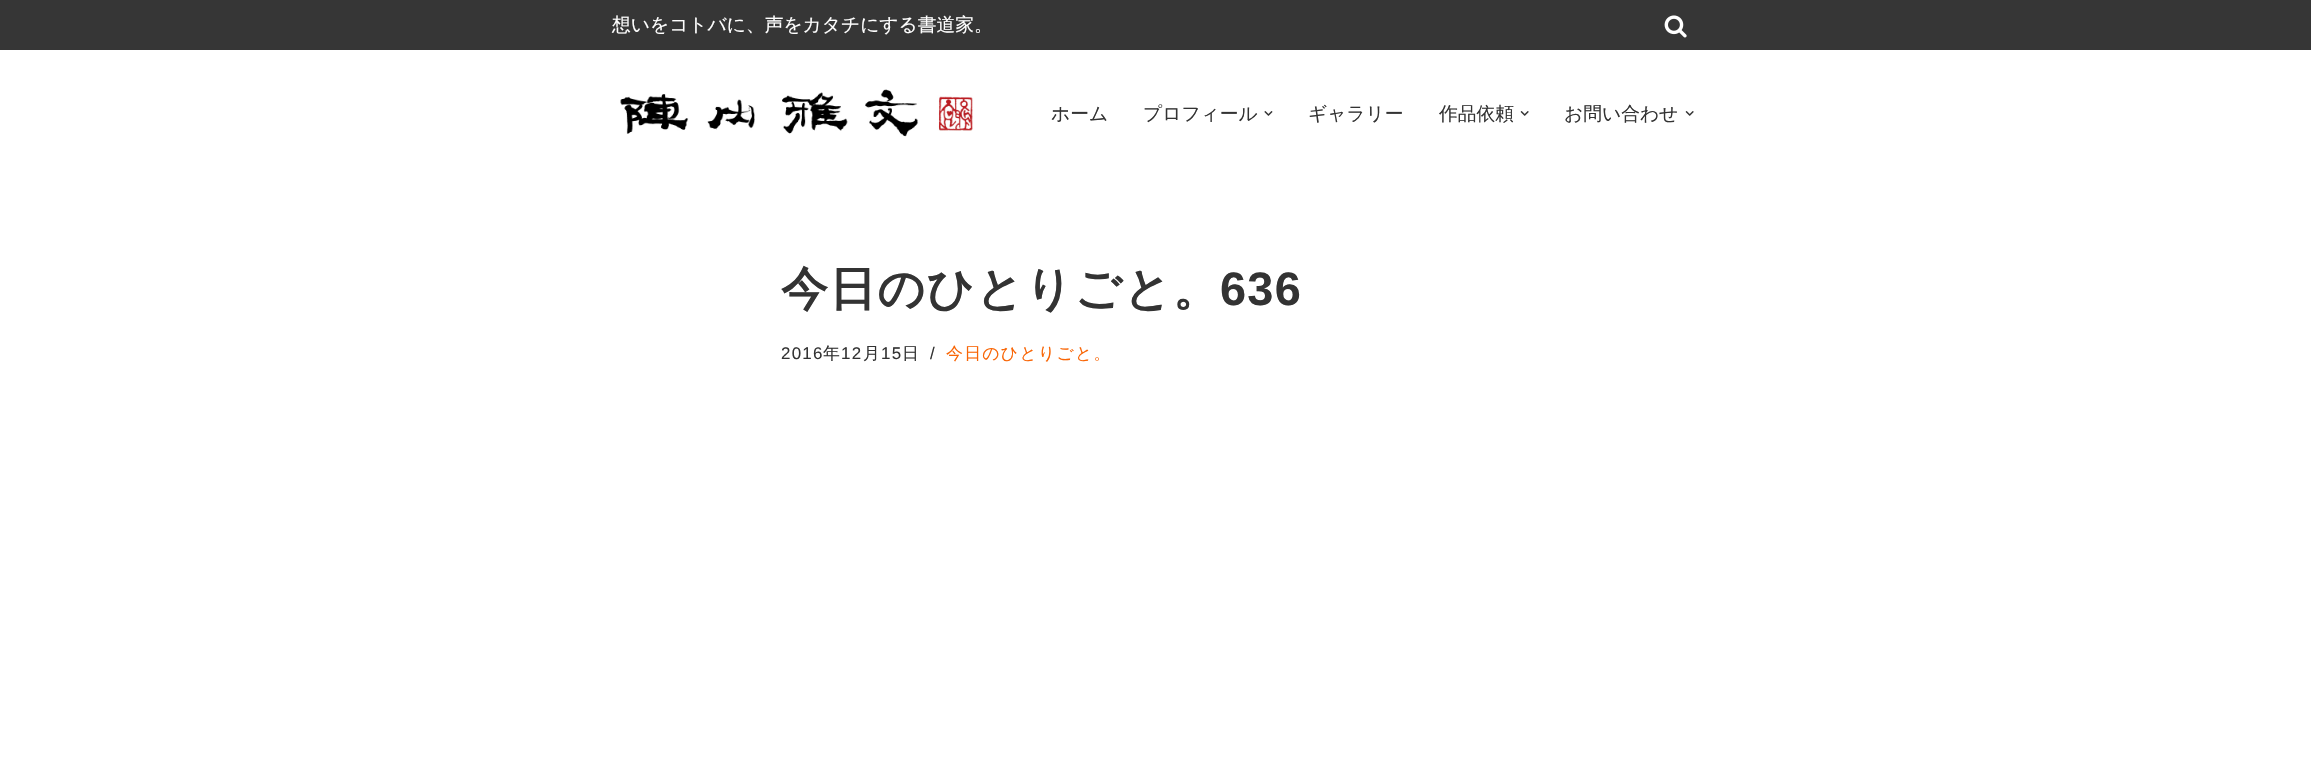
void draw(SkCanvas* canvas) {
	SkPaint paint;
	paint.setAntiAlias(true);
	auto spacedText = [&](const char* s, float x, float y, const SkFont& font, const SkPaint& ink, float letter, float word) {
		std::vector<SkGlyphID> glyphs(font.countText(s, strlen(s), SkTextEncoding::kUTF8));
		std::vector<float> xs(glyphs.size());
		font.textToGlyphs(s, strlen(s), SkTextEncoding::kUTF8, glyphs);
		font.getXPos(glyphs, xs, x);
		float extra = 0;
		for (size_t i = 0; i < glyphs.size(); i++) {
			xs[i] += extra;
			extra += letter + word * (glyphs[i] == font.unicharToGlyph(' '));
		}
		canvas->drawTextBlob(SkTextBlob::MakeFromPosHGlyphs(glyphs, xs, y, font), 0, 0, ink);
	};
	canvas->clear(0xffffffff);
	paint.setColor(0xff363636);
	canvas->drawRect(SkRect::MakeXYWH(0, 0, 2311, 50), paint);
	SkFont f1(fontMgr->matchFamilyStyle("WenQuanYi Zen Hei", SkFontStyle(500, SkFontStyle::kNormal_Width, SkFontStyle::kUpright_Slant)), 18.75);
	f1.setSubpixel(true);
	paint.setColor(0xffffffff);
	canvas->drawString("想いをコトバに、声をカタチにする書道家。", 612, 31, f1, paint);
	canvas->drawImageRect(SkImages::DeferredFromEncodedData(SkData::MakeFromFileName("img1.png")), SkRect::MakeXYWH(1664, 15, 23, 23), SkSamplingOptions());
	canvas->drawImageRect(SkImages::DeferredFromEncodedData(SkData::MakeFromFileName("img2.png")), SkRect::MakeXYWH(620, 89, 353, 48), SkSamplingOptions());
	paint.setColor(0xff333333);
	canvas->drawString("ホーム", 1051, 120, f1, paint);
	canvas->drawString("プロフィール", 1143, 120, f1, paint);
	canvas->drawImageRect(SkImages::DeferredFromEncodedData(SkData::MakeFromFileName("img3.png")), SkRect::MakeXYWH(1264, 111, 9, 5), SkSamplingOptions());
	canvas->drawString("ギャラリー", 1308, 120, f1, paint);
	canvas->drawString("作品依頼", 1439, 120, f1, paint);
	canvas->drawImageRect(SkImages::DeferredFromEncodedData(SkData::MakeFromFileName("img4.png")), SkRect::MakeXYWH(1520, 111, 9, 5), SkSamplingOptions());
	canvas->drawString("お問い合わせ", 1564, 120, f1, paint);
	canvas->drawImageRect(SkImages::DeferredFromEncodedData(SkData::MakeFromFileName("img4.png")), SkRect::MakeXYWH(1685, 111, 9, 5), SkSamplingOptions());
	SkFont f2(fontMgr->matchFamilyStyle("WenQuanYi Zen Hei", SkFontStyle::Bold()), 46.9);
	f2.setSubpixel(true);
	spacedText("今日のひとりごと。", 781, 305, f2, paint, 1.25, 0);
	SkFont f3(fontMgr->matchFamilyStyle("Liberation Sans", SkFontStyle::Bold()), 46.9);
	f3.setSubpixel(true);
	spacedText("636", 1220, 305, f3, paint, 1.25, 0);
	SkFont f4(fontMgr->matchFamilyStyle("Liberation Sans", SkFontStyle::Normal()), 16.9);
	f4.setSubpixel(true);
	spacedText("2016", 781, 359, f4, paint, 1.25, 0);
	SkFont f5(fontMgr->matchFamilyStyle("WenQuanYi Zen Hei", SkFontStyle(500, SkFontStyle::kNormal_Width, SkFontStyle::kUpright_Slant)), 16.9);
	f5.setSubpixel(true);
	spacedText("年", 823, 359, f5, paint, 1.25, 0);
	spacedText("12", 841, 359, f4, paint, 1.25, 0);
	spacedText("月", 863, 359, f5, paint, 1.25, 0);
	spacedText("15", 881, 359, f4, paint, 1.25, 0);
	spacedText("日", 902, 359, f5, paint, 1.25, 0);
	spacedText("/", 930, 359, f4, paint, 1.25, 0);
	paint.setColor(0xfff96505);
	spacedText("今日のひとりごと。", 946, 359, f5, paint, 1.25, 0);
}
